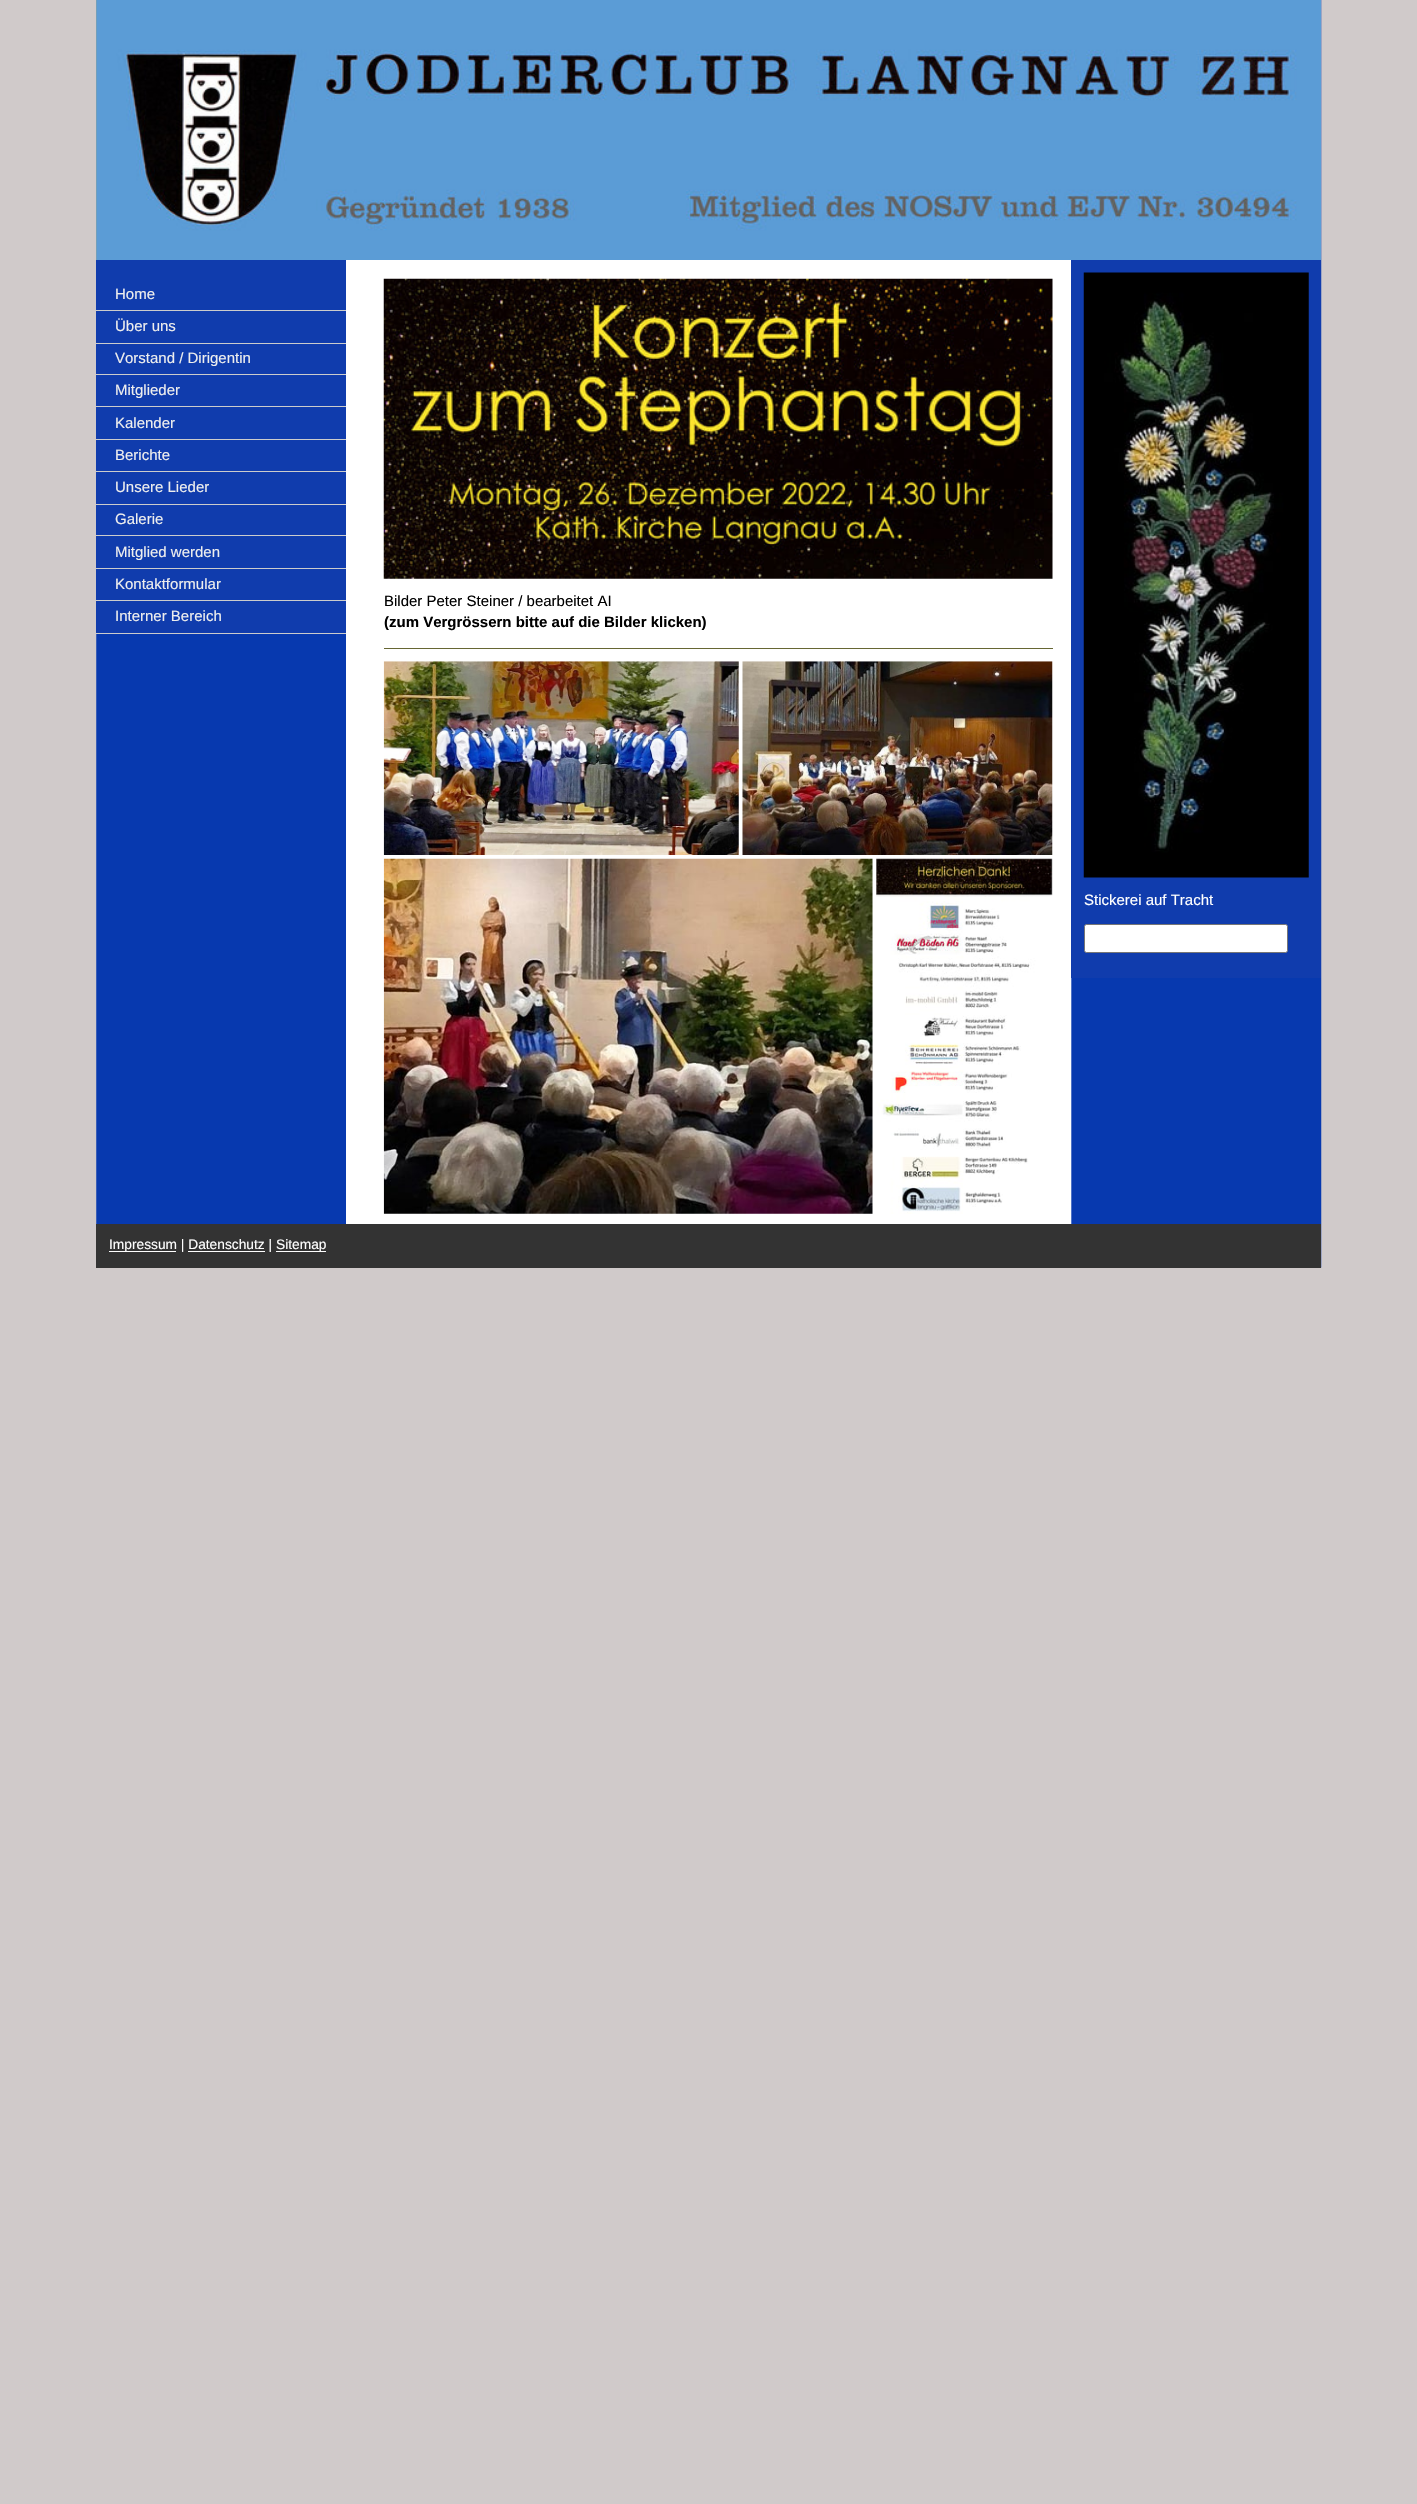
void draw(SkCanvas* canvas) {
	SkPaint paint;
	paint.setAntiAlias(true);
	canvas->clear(0xffd0caca);
	canvas->drawImageRect(SkImages::DeferredFromEncodedData(SkData::MakeFromFileName("img1.png")), SkRect::MakeXYWH(96, 0, 1226, 1268), SkSamplingOptions());
	paint.setColor(0xff90a294);
	canvas->drawRect(SkRect::MakeXYWH(96, 0, 1, 260), paint);
	canvas->drawImageRect(SkImages::DeferredFromEncodedData(SkData::MakeFromFileName("img2.png")), SkRect::MakeXYWH(96, 0, 1225, 260), SkSamplingOptions());
	paint.setColor(0xff103cad);
	canvas->drawRect(SkRect::MakeXYWH(96, 260, 250, 373), paint);
	paint.setColor(0xffcccccc);
	canvas->drawRect(SkRect::MakeXYWH(96, 310, 250, 1), paint);
	SkFont f1(fontMgr->matchFamilyStyle("Liberation Sans", SkFontStyle::Normal()), 15);
	f1.setSubpixel(true);
	paint.setColor(0xffeeeeee);
	canvas->drawString("Home", 115, 299, f1, paint);
	paint.setColor(0xffcccccc);
	canvas->drawRect(SkRect::MakeXYWH(96, 343, 250, 1), paint);
	paint.setColor(0xffeeeeee);
	canvas->drawString("Über uns", 115, 331, f1, paint);
	paint.setColor(0xffcccccc);
	canvas->drawRect(SkRect::MakeXYWH(96, 374, 250, 1), paint);
	paint.setColor(0xffeeeeee);
	canvas->drawString("Vorstand / Dirigentin", 115, 363, f1, paint);
	paint.setColor(0xffcccccc);
	canvas->drawRect(SkRect::MakeXYWH(96, 406, 250, 1), paint);
	paint.setColor(0xffeeeeee);
	canvas->drawString("Mitglieder", 115, 395, f1, paint);
	paint.setColor(0xffcccccc);
	canvas->drawRect(SkRect::MakeXYWH(96, 439, 250, 1), paint);
	paint.setColor(0xffeeeeee);
	canvas->drawString("Kalender", 115, 428, f1, paint);
	paint.setColor(0xffcccccc);
	canvas->drawRect(SkRect::MakeXYWH(96, 471, 250, 1), paint);
	paint.setColor(0xffeeeeee);
	canvas->drawString("Berichte", 115, 460, f1, paint);
	paint.setColor(0xffcccccc);
	canvas->drawRect(SkRect::MakeXYWH(96, 504, 250, 1), paint);
	paint.setColor(0xffeeeeee);
	canvas->drawString("Unsere Lieder", 115, 492, f1, paint);
	paint.setColor(0xffcccccc);
	canvas->drawRect(SkRect::MakeXYWH(96, 535, 250, 1), paint);
	paint.setColor(0xffeeeeee);
	canvas->drawString("Galerie", 115, 524, f1, paint);
	paint.setColor(0xffcccccc);
	canvas->drawRect(SkRect::MakeXYWH(96, 568, 250, 1), paint);
	paint.setColor(0xffeeeeee);
	canvas->drawString("Mitglied werden", 115, 557, f1, paint);
	paint.setColor(0xffcccccc);
	canvas->drawRect(SkRect::MakeXYWH(96, 600, 250, 1), paint);
	paint.setColor(0xffeeeeee);
	canvas->drawString("Kontaktformular", 115, 589, f1, paint);
	paint.setColor(0xffcccccc);
	canvas->drawRect(SkRect::MakeXYWH(96, 633, 250, 1), paint);
	paint.setColor(0xffeeeeee);
	canvas->drawString("Interner Bereich", 115, 621, f1, paint);
	paint.setColor(0xffffffff);
	canvas->drawRect(SkRect::MakeXYWH(346, 260, 1, 964), paint);
	canvas->drawImageRect(SkImages::DeferredFromEncodedData(SkData::MakeFromFileName("img3.png")), SkRect::MakeXYWH(383, 278, 670, 301), SkSamplingOptions());
	paint.setColor(0xff000000);
	canvas->drawString("Bilder Peter Steiner / bearbeitet AI", 384, 606, f1, paint);
	SkFont f2(fontMgr->matchFamilyStyle("Liberation Sans", SkFontStyle::Bold()), 15);
	f2.setSubpixel(true);
	canvas->drawString("(zum Vergrössern bitte auf die Bilder klicken)", 384, 627, f2, paint);
	paint.setColor(0xff666633);
	canvas->drawRect(SkRect::MakeXYWH(384, 648, 669, 1), paint);
	canvas->drawImageRect(SkImages::DeferredFromEncodedData(SkData::MakeFromFileName("img4.png")), SkRect::MakeXYWH(383, 661, 356, 194), SkSamplingOptions());
	canvas->drawImageRect(SkImages::DeferredFromEncodedData(SkData::MakeFromFileName("img5.png")), SkRect::MakeXYWH(742, 661, 311, 194), SkSamplingOptions());
	canvas->drawImageRect(SkImages::DeferredFromEncodedData(SkData::MakeFromFileName("img6.png")), SkRect::MakeXYWH(383, 858, 490, 356), SkSamplingOptions());
	canvas->drawImageRect(SkImages::DeferredFromEncodedData(SkData::MakeFromFileName("img7.png")), SkRect::MakeXYWH(876, 858, 177, 356), SkSamplingOptions());
	paint.setColor(0xff103cad);
	canvas->drawRect(SkRect::MakeXYWH(1071, 260, 250, 718), paint);
	canvas->drawImageRect(SkImages::DeferredFromEncodedData(SkData::MakeFromFileName("img8.png")), SkRect::MakeXYWH(1083, 272, 226, 606), SkSamplingOptions());
	paint.setColor(0xffffffff);
	canvas->drawString("Stickerei auf Tracht", 1084, 905, f1, paint);
	canvas->drawRoundRect(SkRect::MakeXYWH(1084.5, 924.5, 203, 28), 2, 2, paint);
	paint.setStroke(true);
	paint.setStrokeWidth(1);
	paint.setColor(0xff767676);
	canvas->drawRoundRect(SkRect::MakeXYWH(1084.5, 924.5, 203, 28), 2, 2, paint);
	paint.setStroke(false);
	paint.setColor(0xff333333);
	canvas->drawRect(SkRect::MakeXYWH(96, 1224, 1225, 44), paint);
	paint.setColor(0xffffffff);
	canvas->drawRect(SkRect::MakeXYWH(109, 1251, 67, 1), paint);
	SkFont f3(fontMgr->matchFamilyStyle("Liberation Sans", SkFontStyle::Normal()), 13.75);
	f3.setSubpixel(true);
	canvas->drawString("Impressum | Datenschutz |", 109, 1249, f3, paint);
	canvas->drawRect(SkRect::MakeXYWH(276, 1251, 50, 1), paint);
	canvas->drawString("Sitemap", 276, 1249, f3, paint);
	canvas->drawRect(SkRect::MakeXYWH(188, 1251, 77, 1), paint);
}
